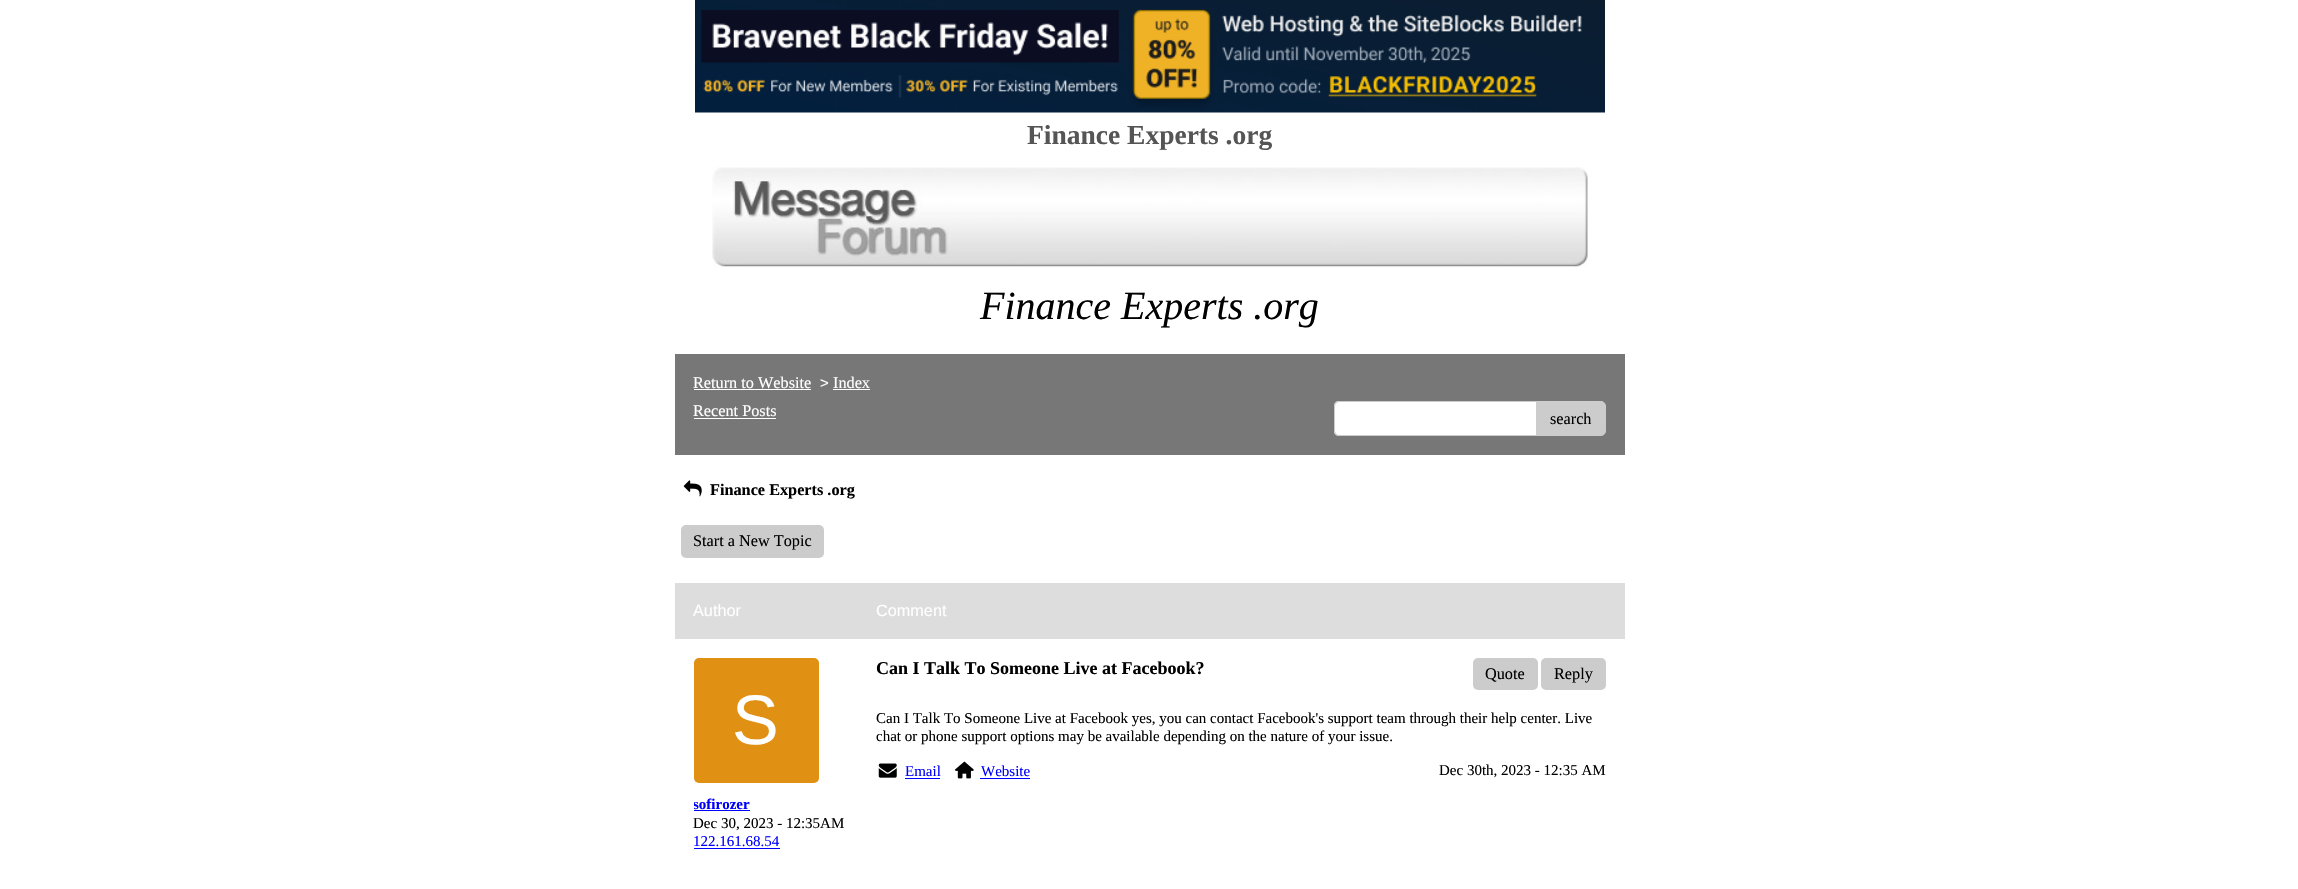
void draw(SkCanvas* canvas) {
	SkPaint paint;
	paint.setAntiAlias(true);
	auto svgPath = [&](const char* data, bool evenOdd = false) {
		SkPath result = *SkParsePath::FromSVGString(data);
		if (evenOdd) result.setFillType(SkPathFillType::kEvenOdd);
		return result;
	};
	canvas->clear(0xffffffff);
	canvas->drawImageRect(SkImages::DeferredFromEncodedData(SkData::MakeFromFileName("img1.png")), SkRect::MakeXYWH(695, 0, 910, 113), SkSamplingOptions());
	SkFont f1(fontMgr->matchFamilyStyle("Liberation Serif", SkFontStyle::Bold()), 27.5);
	f1.setSubpixel(true);
	paint.setColor(0xff555555);
	canvas->drawString("Finance Experts .org", 1027, 144, f1, paint);
	canvas->drawImageRect(SkImages::DeferredFromEncodedData(SkData::MakeFromFileName("img2.png")), SkRect::MakeXYWH(712, 167, 876, 100), SkSamplingOptions());
	SkFont f2(fontMgr->matchFamilyStyle("Liberation Serif", SkFontStyle::Italic()), 40);
	f2.setSubpixel(true);
	paint.setColor(0xff000000);
	canvas->drawString("Finance Experts .org", 980, 319, f2, paint);
	paint.setColor(0xff777777);
	canvas->drawRect(SkRect::MakeXYWH(675, 354, 950, 101), paint);
	SkFont f3(fontMgr->matchFamilyStyle("Liberation Serif", SkFontStyle::Normal()), 16.25);
	f3.setSubpixel(true);
	paint.setColor(0xffffffff);
	canvas->drawString("Return to Website", 693, 388, f3, paint);
	canvas->drawRect(SkRect::MakeXYWH(694, 389, 117, 1), paint);
	SkFont f4(fontMgr->matchFamilyStyle("Liberation Sans", SkFontStyle::Normal()), 15);
	f4.setSubpixel(true);
	canvas->drawString(">", 820, 388, f4, paint);
	canvas->drawString("Index", 833, 388, f3, paint);
	canvas->drawRect(SkRect::MakeXYWH(833, 389, 37, 1), paint);
	canvas->drawString("Recent Posts", 693, 416, f3, paint);
	canvas->drawRect(SkRect::MakeXYWH(694, 418, 82, 1), paint);
	canvas->drawRoundRect(SkRect::MakeXYWH(1334, 401, 260, 35), 5, 5, paint);
	paint.setColor(0xffcccccc);
	canvas->drawPath(svgPath("M1339 401H1589C1592 401 1594 403 1594 406V431C1594 434 1592 436 1589 436H1339C1336 436 1334 434 1334 431V406C1334 403 1336 401 1339 401ZM1339 402H1589C1592 402 1594 404 1594 406V431C1594 433 1592 435 1589 435H1339C1337 435 1335 433 1335 431V406C1335 404 1337 402 1339 402Z", true), paint);
	canvas->drawPath(svgPath("M1536.5 401.5H1601C1603.5 401.5 1605.5 403.5 1605.5 406V431C1605.5 433.5 1603.5 435.5 1601 435.5H1536.5Z"), paint);
	paint.setStroke(true);
	paint.setStrokeWidth(1);
	canvas->drawPath(svgPath("M1536.5 401.5H1601C1603.5 401.5 1605.5 403.5 1605.5 406V431C1605.5 433.5 1603.5 435.5 1601 435.5H1536.5Z"), paint);
	paint.setStroke(false);
	paint.setColor(0xff000000);
	canvas->drawString("search", 1550, 424, f3, paint);
	canvas->drawImageRect(SkImages::DeferredFromEncodedData(SkData::MakeFromFileName("img3.png")), SkRect::MakeXYWH(683, 480, 19, 17), SkSamplingOptions());
	SkFont f5(fontMgr->matchFamilyStyle("Liberation Serif", SkFontStyle::Bold()), 16.25);
	f5.setSubpixel(true);
	canvas->drawString("Finance Experts .org", 710, 495, f5, paint);
	paint.setColor(0xffcccccc);
	canvas->drawRoundRect(SkRect::MakeXYWH(681, 525, 143, 33), 5, 5, paint);
	paint.setColor(0xff000000);
	canvas->drawString("Start a New Topic", 693, 546, f3, paint);
	paint.setColor(0xffdddddd);
	canvas->drawRect(SkRect::MakeXYWH(675, 583, 950, 56), paint);
	SkFont f6(fontMgr->matchFamilyStyle("Liberation Sans", SkFontStyle::Normal()), 16.25);
	f6.setSubpixel(true);
	paint.setColor(0xffffffff);
	canvas->drawString("Author", 693, 616, f6, paint);
	canvas->drawString("Comment", 876, 616, f6, paint);
	paint.setColor(0xffe09113);
	canvas->drawRoundRect(SkRect::MakeXYWH(694, 658, 125, 125), 5, 5, paint);
	SkFont f7(fontMgr->matchFamilyStyle("Liberation Sans", SkFontStyle::Normal()), 70);
	f7.setSubpixel(true);
	paint.setColor(0xffffffff);
	canvas->drawString("S", 732, 744, f7, paint);
	canvas->save();
	canvas->clipRect(SkRect::MakeXYWH(694, 795, 162, 19));
	SkFont f8(fontMgr->matchFamilyStyle("Liberation Serif", SkFontStyle::Bold()), 15);
	f8.setSubpixel(true);
	paint.setColor(0xff0000ff);
	canvas->drawString("sofirozer", 693, 809, f8, paint);
	canvas->restore();
	canvas->drawRect(SkRect::MakeXYWH(694, 810, 56, 1), paint);
	SkFont f9(fontMgr->matchFamilyStyle("Liberation Serif", SkFontStyle::Normal()), 15);
	f9.setSubpixel(true);
	paint.setColor(0xff000000);
	canvas->drawString("Dec 30, 2023 - 12:35AM", 693, 828, f9, paint);
	paint.setColor(0xff0000ff);
	canvas->drawString("122.161.68.54", 693, 846, f9, paint);
	canvas->drawRect(SkRect::MakeXYWH(694, 848, 86, 1), paint);
	SkFont f10(fontMgr->matchFamilyStyle("Liberation Serif", SkFontStyle::Bold()), 18);
	f10.setSubpixel(true);
	paint.setColor(0xff000000);
	canvas->drawString("Can I Talk To Someone Live at Facebook?", 876, 674, f10, paint);
	paint.setColor(0xffcccccc);
	canvas->drawRoundRect(SkRect::MakeXYWH(1473, 658, 65, 32), 5, 5, paint);
	paint.setColor(0xff000000);
	canvas->drawString("Quote", 1485, 679, f3, paint);
	paint.setColor(0xffcccccc);
	canvas->drawRoundRect(SkRect::MakeXYWH(1541, 658, 65, 32), 5, 5, paint);
	paint.setColor(0xff000000);
	canvas->drawString("Reply", 1554, 679, f3, paint);
	canvas->drawString("Can I Talk To Someone Live at Facebook yes, you can contact Facebook's support team through their help center. Live", 876, 723, f9, paint);
	canvas->drawString("chat or phone support options may be available depending on the nature of your issue.", 876, 741, f9, paint);
	canvas->drawImageRect(SkImages::DeferredFromEncodedData(SkData::MakeFromFileName("img4.png")), SkRect::MakeXYWH(878, 763, 19, 15), SkSamplingOptions());
	paint.setColor(0xff0000ff);
	canvas->drawString("Email", 905, 776, f9, paint);
	canvas->drawRect(SkRect::MakeXYWH(905, 778, 35, 1), paint);
	canvas->drawImageRect(SkImages::DeferredFromEncodedData(SkData::MakeFromFileName("img5.png")), SkRect::MakeXYWH(955, 761, 19, 18), SkSamplingOptions());
	canvas->drawString("Website", 981, 776, f9, paint);
	canvas->drawRect(SkRect::MakeXYWH(980, 778, 50, 1), paint);
	paint.setColor(0xff000000);
	canvas->drawString("Dec 30th, 2023 - 12:35 AM", 1439, 775, f9, paint);
}
